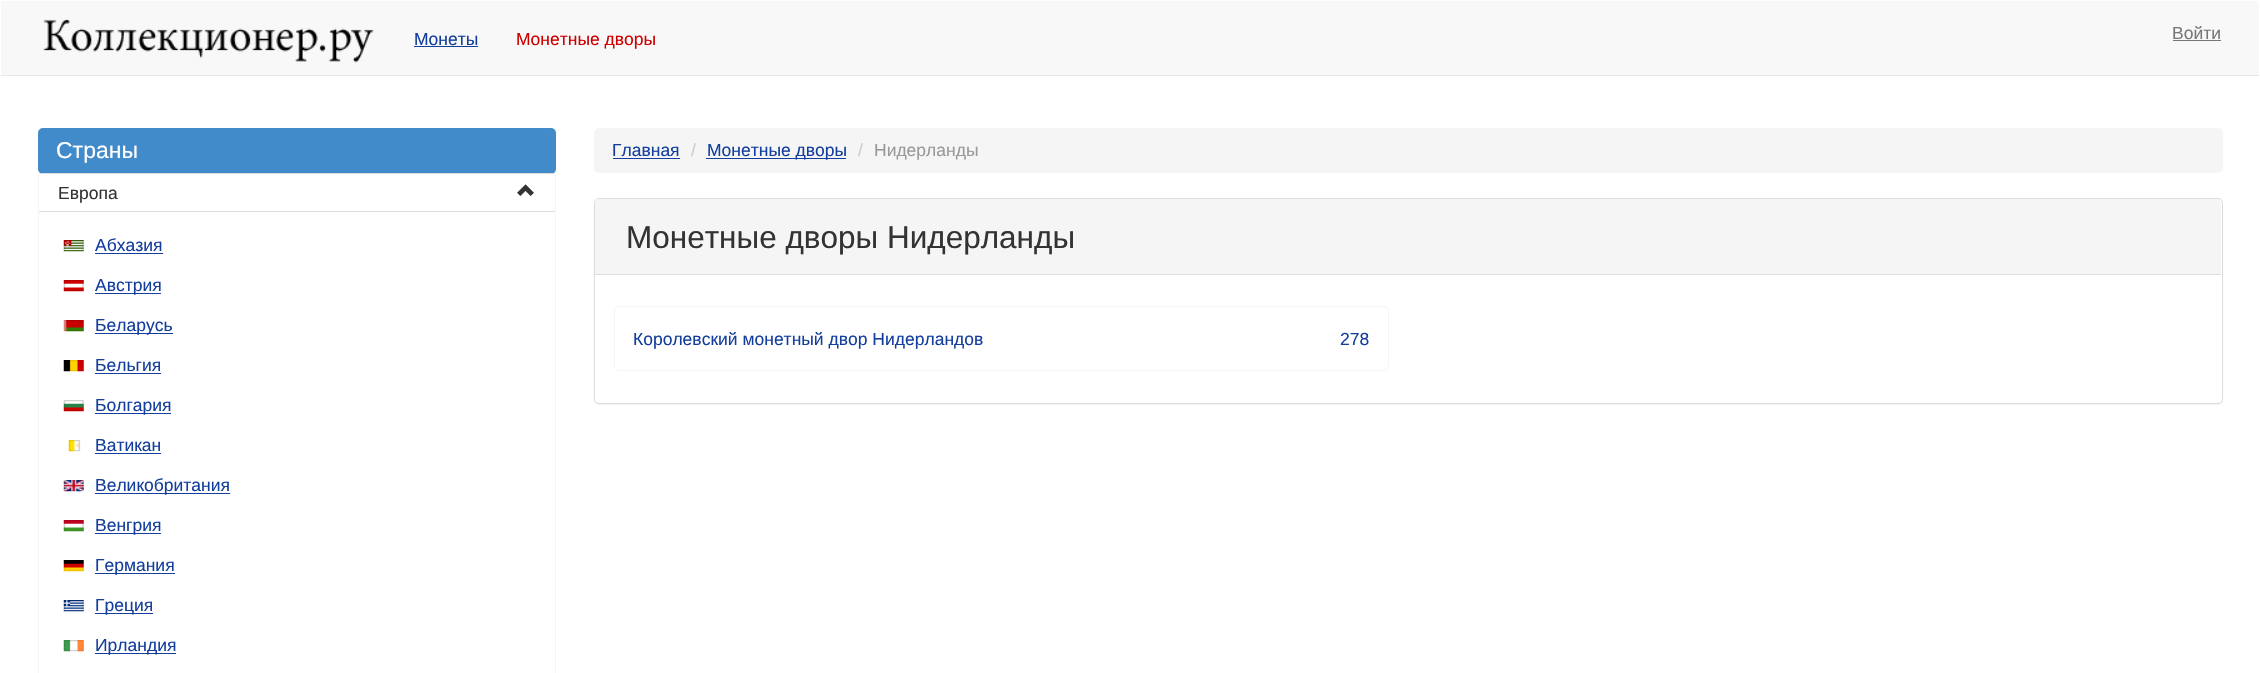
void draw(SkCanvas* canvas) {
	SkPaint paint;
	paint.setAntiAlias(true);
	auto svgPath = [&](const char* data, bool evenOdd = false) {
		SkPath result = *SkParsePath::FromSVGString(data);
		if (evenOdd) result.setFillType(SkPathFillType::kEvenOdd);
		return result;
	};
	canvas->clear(0xffffffff);
	paint.setColor(0xfff8f8f8);
	canvas->drawRect(SkRect::MakeXYWH(1, 1, 2258, 74), paint);
	paint.setColor(0xffe7e7e7);
	canvas->drawRect(SkRect::MakeXYWH(1, 75, 2258, 1), paint);
	canvas->drawImageRect(SkImages::DeferredFromEncodedData(SkData::MakeFromFileName("img1.png")), SkRect::MakeXYWH(43, 19, 331, 44), SkSamplingOptions());
	SkFont f1(fontMgr->matchFamilyStyle("Liberation Sans", SkFontStyle::Normal()), 17.5);
	f1.setSubpixel(true);
	paint.setColor(0xff133e9d);
	canvas->drawString("Монеты", 414, 45, f1, paint);
	canvas->drawRect(SkRect::MakeXYWH(414, 46, 64, 1), paint);
	paint.setColor(0xffcc0000);
	canvas->drawString("Монетные дворы", 516, 45, f1, paint);
	paint.setColor(0xff777777);
	canvas->drawString("Войти", 2172, 39, f1, paint);
	canvas->drawRect(SkRect::MakeXYWH(2173, 40, 48, 1), paint);
	paint.setColor(0xff428bca);
	canvas->drawRoundRect(SkRect::MakeXYWH(38, 128, 518, 46), 5, 5, paint);
	paint.setColor(0xffdddddd);
	canvas->drawRect(SkRect::MakeXYWH(40, 173, 514, 1), paint);
	SkFont f2(fontMgr->matchFamilyStyle("Liberation Sans", SkFontStyle::Normal()), 23);
	f2.setSubpixel(true);
	paint.setColor(0xffffffff);
	canvas->drawString("Страны", 56, 158, f2, paint);
	paint.setColor(0xfff5f5f5);
	canvas->drawRect(SkRect::MakeXYWH(555, 174, 1, 499), paint);
	canvas->drawRect(SkRect::MakeXYWH(38, 174, 1, 499), paint);
	paint.setColor(0xffdddddd);
	canvas->drawRect(SkRect::MakeXYWH(39, 211, 516, 1), paint);
	paint.setColor(0xff333333);
	canvas->drawString("Европа", 58, 199, f1, paint);
	canvas->drawImageRect(SkImages::DeferredFromEncodedData(SkData::MakeFromFileName("img2.png")), SkRect::MakeXYWH(517, 184, 17, 12), SkSamplingOptions());
	canvas->drawImageRect(SkImages::DeferredFromEncodedData(SkData::MakeFromFileName("img3.png")), SkRect::MakeXYWH(63, 240, 21, 12), SkSamplingOptions());
	paint.setColor(0xff133e9d);
	canvas->drawString("Абхазия", 95, 251, f1, paint);
	canvas->drawRect(SkRect::MakeXYWH(95, 253, 68, 1), paint);
	canvas->drawImageRect(SkImages::DeferredFromEncodedData(SkData::MakeFromFileName("img4.png")), SkRect::MakeXYWH(63, 280, 21, 12), SkSamplingOptions());
	canvas->drawRect(SkRect::MakeXYWH(95, 293, 66, 1), paint);
	canvas->drawString("Австрия", 95, 291, f1, paint);
	canvas->drawImageRect(SkImages::DeferredFromEncodedData(SkData::MakeFromFileName("img5.png")), SkRect::MakeXYWH(63, 320, 21, 12), SkSamplingOptions());
	canvas->drawRect(SkRect::MakeXYWH(95, 333, 78, 1), paint);
	canvas->drawString("Беларусь", 95, 331, f1, paint);
	canvas->drawImageRect(SkImages::DeferredFromEncodedData(SkData::MakeFromFileName("img6.png")), SkRect::MakeXYWH(63, 360, 21, 12), SkSamplingOptions());
	canvas->drawString("Бельгия", 95, 371, f1, paint);
	canvas->drawRect(SkRect::MakeXYWH(95, 373, 66, 1), paint);
	canvas->drawImageRect(SkImages::DeferredFromEncodedData(SkData::MakeFromFileName("img7.png")), SkRect::MakeXYWH(63, 400, 21, 12), SkSamplingOptions());
	canvas->drawRect(SkRect::MakeXYWH(95, 413, 76, 1), paint);
	canvas->drawString("Болгария", 95, 411, f1, paint);
	canvas->drawImageRect(SkImages::DeferredFromEncodedData(SkData::MakeFromFileName("img8.png")), SkRect::MakeXYWH(68, 440, 13, 12), SkSamplingOptions());
	canvas->drawString("Ватикан", 95, 451, f1, paint);
	canvas->drawRect(SkRect::MakeXYWH(95, 453, 66, 1), paint);
	canvas->drawImageRect(SkImages::DeferredFromEncodedData(SkData::MakeFromFileName("img9.png")), SkRect::MakeXYWH(63, 480, 21, 12), SkSamplingOptions());
	canvas->drawRect(SkRect::MakeXYWH(95, 493, 135, 1), paint);
	canvas->drawString("Великобритания", 95, 491, f1, paint);
	canvas->drawImageRect(SkImages::DeferredFromEncodedData(SkData::MakeFromFileName("img10.png")), SkRect::MakeXYWH(63, 520, 21, 12), SkSamplingOptions());
	canvas->drawRect(SkRect::MakeXYWH(95, 533, 66, 1), paint);
	canvas->drawString("Венгрия", 95, 531, f1, paint);
	canvas->drawImageRect(SkImages::DeferredFromEncodedData(SkData::MakeFromFileName("img11.png")), SkRect::MakeXYWH(63, 560, 21, 12), SkSamplingOptions());
	canvas->drawRect(SkRect::MakeXYWH(95, 573, 80, 1), paint);
	canvas->drawString("Германия", 95, 571, f1, paint);
	canvas->drawImageRect(SkImages::DeferredFromEncodedData(SkData::MakeFromFileName("img12.png")), SkRect::MakeXYWH(63, 600, 21, 12), SkSamplingOptions());
	canvas->drawRect(SkRect::MakeXYWH(95, 613, 58, 1), paint);
	canvas->drawString("Греция", 95, 611, f1, paint);
	canvas->drawImageRect(SkImages::DeferredFromEncodedData(SkData::MakeFromFileName("img13.png")), SkRect::MakeXYWH(63, 640, 21, 12), SkSamplingOptions());
	canvas->drawRect(SkRect::MakeXYWH(95, 653, 81, 1), paint);
	canvas->drawString("Ирландия", 95, 651, f1, paint);
	paint.setColor(0xfff5f5f5);
	canvas->drawRoundRect(SkRect::MakeXYWH(594, 128, 1629, 45), 5, 5, paint);
	paint.setColor(0xff133e9d);
	canvas->drawString("Главная", 612, 156, f1, paint);
	canvas->drawRect(SkRect::MakeXYWH(613, 158, 67, 1), paint);
	paint.setColor(0xffcccccc);
	canvas->drawString("/", 691, 156, f1, paint);
	paint.setColor(0xff133e9d);
	canvas->drawRect(SkRect::MakeXYWH(706, 158, 140, 1), paint);
	canvas->drawString("Монетные дворы", 707, 156, f1, paint);
	paint.setColor(0xffcccccc);
	canvas->drawString("/", 858, 156, f1, paint);
	paint.setColor(0xff999999);
	canvas->drawString("Нидерланды", 874, 156, f1, paint);
	paint.setColor(0x0d000000);
	paint.setMaskFilter(SkMaskFilter::MakeBlur(kNormal_SkBlurStyle, 0.5));
	canvas->drawRoundRect(SkRect::MakeXYWH(594, 199, 1629, 206), 5, 5, paint);
	paint.setMaskFilter(nullptr);
	paint.setColor(0xffffffff);
	canvas->drawRoundRect(SkRect::MakeXYWH(594.5, 198.5, 1628, 205), 4.5, 4.5, paint);
	paint.setStroke(true);
	paint.setStrokeWidth(1);
	paint.setColor(0xffdddddd);
	canvas->drawRoundRect(SkRect::MakeXYWH(594.5, 198.5, 1628, 205), 4.5, 4.5, paint);
	paint.setStroke(false);
	paint.setColor(0xfff5f5f5);
	canvas->drawPath(svgPath("M599 199H2217C2219 199 2221 201 2221 203V275H595V203C595 201 597 199 599 199Z"), paint);
	paint.setColor(0xffdddddd);
	canvas->drawRect(SkRect::MakeXYWH(595, 274, 1626, 1), paint);
	SkFont f3(fontMgr->matchFamilyStyle("Liberation Sans", SkFontStyle::Normal()), 31.5);
	f3.setSubpixel(true);
	paint.setColor(0xff333333);
	canvas->drawString("Монетные дворы Нидерланды", 626, 248, f3, paint);
	paint.setStroke(true);
	paint.setColor(0xfff5f5f5);
	canvas->drawRoundRect(SkRect::MakeXYWH(614.5, 306.5, 774, 64), 4.5, 4.5, paint);
	paint.setStroke(false);
	paint.setColor(0xff133e9d);
	canvas->drawString("Королевский монетный двор Нидерландов", 633, 345, f1, paint);
	canvas->drawString("278", 1340, 345, f1, paint);
}
